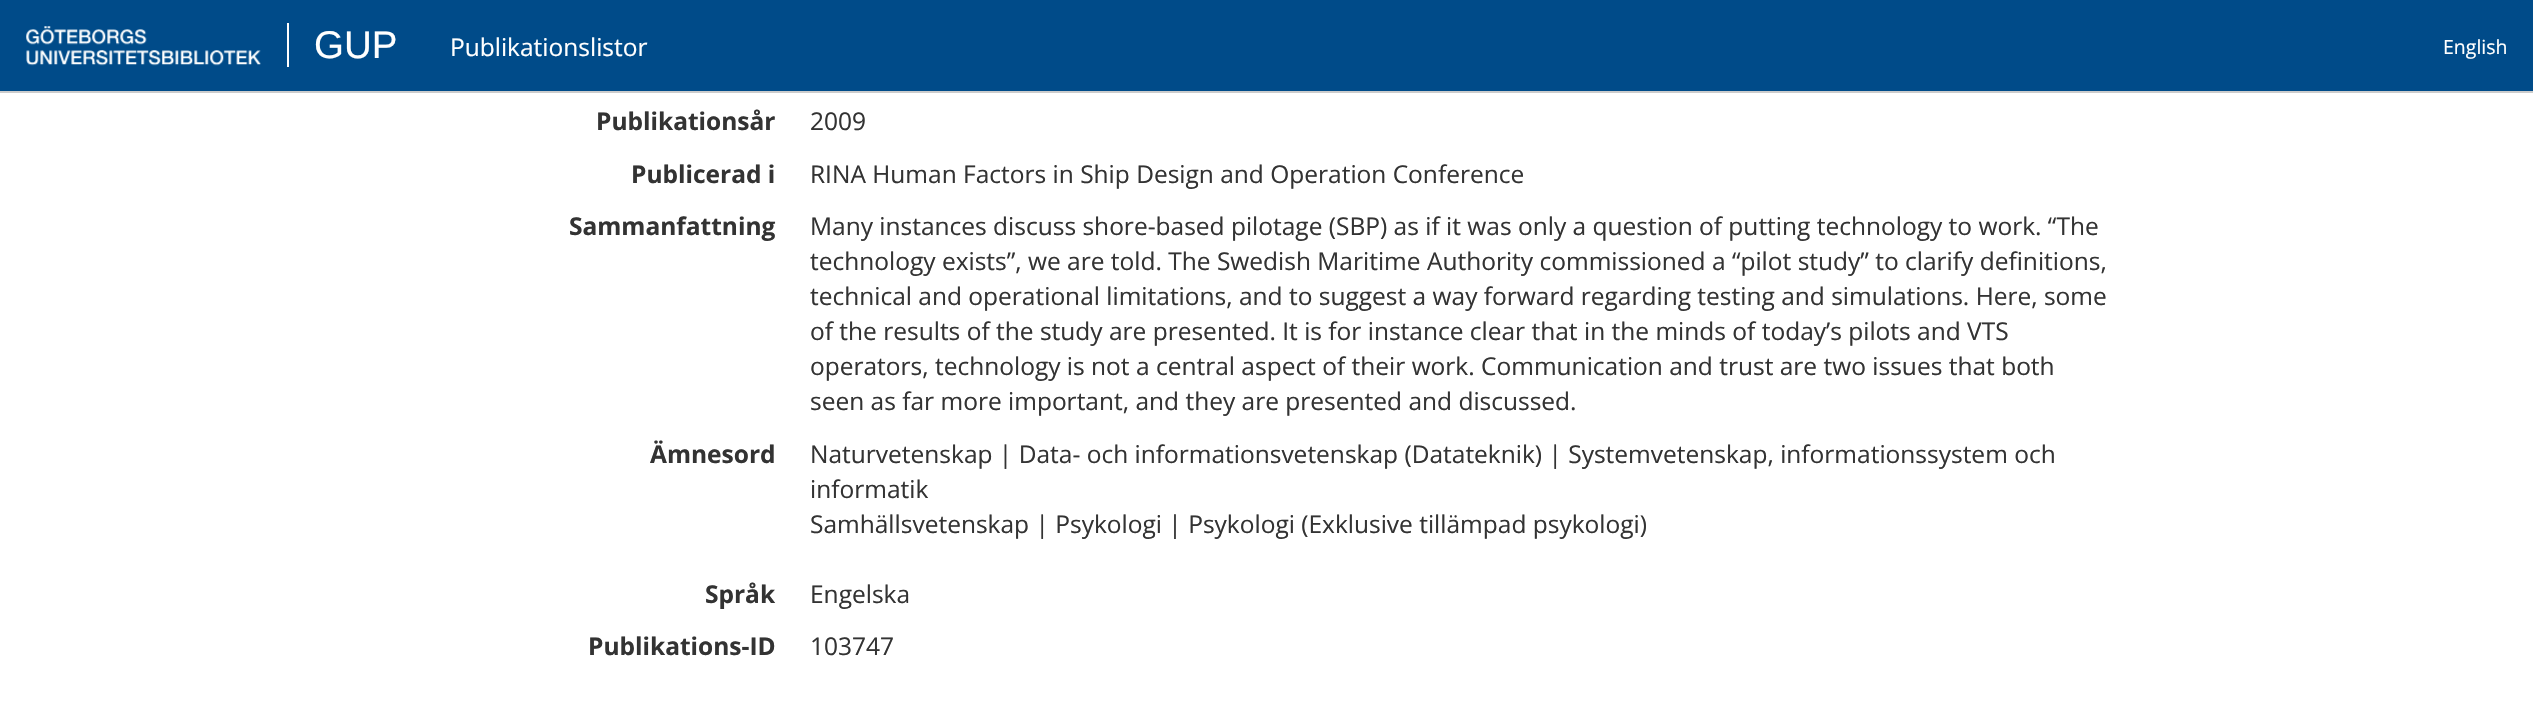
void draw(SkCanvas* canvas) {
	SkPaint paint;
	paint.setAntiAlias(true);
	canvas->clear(0xffffffff);
	paint.setColor(0xff004b89);
	canvas->drawRect(SkRect::MakeXYWH(0, 0, 2533, 91), paint);
	paint.setColor(0xffcccccc);
	canvas->drawRect(SkRect::MakeXYWH(0, 91, 2533, 2), paint);
	canvas->drawImageRect(SkImages::DeferredFromEncodedData(SkData::MakeFromFileName("img1.png")), SkRect::MakeXYWH(26, 26, 235, 40), SkSamplingOptions());
	paint.setColor(0xffffffff);
	canvas->drawRect(SkRect::MakeXYWH(287, 23, 2, 44), paint);
	SkFont f1(fontMgr->matchFamilyStyle("Liberation Sans", SkFontStyle::Normal()), 38.5);
	f1.setSubpixel(true);
	canvas->drawString("GUP", 314, 58, f1, paint);
	SkFont f2(fontMgr->matchFamilyStyle("Open Sans", SkFontStyle::Normal()), 24.5);
	f2.setSubpixel(true);
	canvas->drawString("Publikationslistor", 450, 56, f2, paint);
	SkFont f3(fontMgr->matchFamilyStyle("Open Sans", SkFontStyle::Normal()), 19.5);
	f3.setSubpixel(true);
	canvas->drawString("English", 2443, 54, f3, paint);
	SkFont f4(fontMgr->matchFamilyStyle("Open Sans", SkFontStyle::Bold()), 24.5);
	f4.setSubpixel(true);
	paint.setColor(0xff333333);
	canvas->drawString("Publikationsår", 596, 130, f4, paint);
	canvas->drawString("2009", 810, 130, f2, paint);
	canvas->drawString("Publicerad i", 631, 183, f4, paint);
	canvas->drawString("RINA Human Factors in Ship Design and Operation Conference", 810, 183, f2, paint);
	canvas->drawString("Sammanfattning", 569, 235, f4, paint);
	canvas->drawString("Many instances discuss shore-based pilotage (SBP) as if it was only a question of putting technology to work. “The", 810, 235, f2, paint);
	canvas->drawString("technology exists”, we are told. The Swedish Maritime Authority commissioned a “pilot study” to clarify definitions,", 810, 270, f2, paint);
	canvas->drawString("technical and operational limitations, and to suggest a way forward regarding testing and simulations. Here, some", 810, 305, f2, paint);
	canvas->drawString("of the results of the study are presented. It is for instance clear that in the minds of today’s pilots and VTS", 810, 340, f2, paint);
	canvas->drawString("operators, technology is not a central aspect of their work. Communication and trust are two issues that both", 810, 375, f2, paint);
	canvas->drawString("seen as far more important, and they are presented and discussed.", 810, 410, f2, paint);
	canvas->drawString("Ämnesord", 650, 463, f4, paint);
	canvas->drawString("Naturvetenskap | Data- och informationsvetenskap (Datateknik) | Systemvetenskap, informationssystem och", 810, 463, f2, paint);
	canvas->drawString("informatik", 810, 498, f2, paint);
	canvas->drawString("Samhällsvetenskap | Psykologi | Psykologi (Exklusive tillämpad psykologi)", 810, 533, f2, paint);
	canvas->drawString("Språk", 705, 603, f4, paint);
	canvas->drawString("Engelska", 810, 603, f2, paint);
	canvas->drawString("Publikations-ID", 588, 655, f4, paint);
	canvas->drawString("103747", 810, 655, f2, paint);
}
